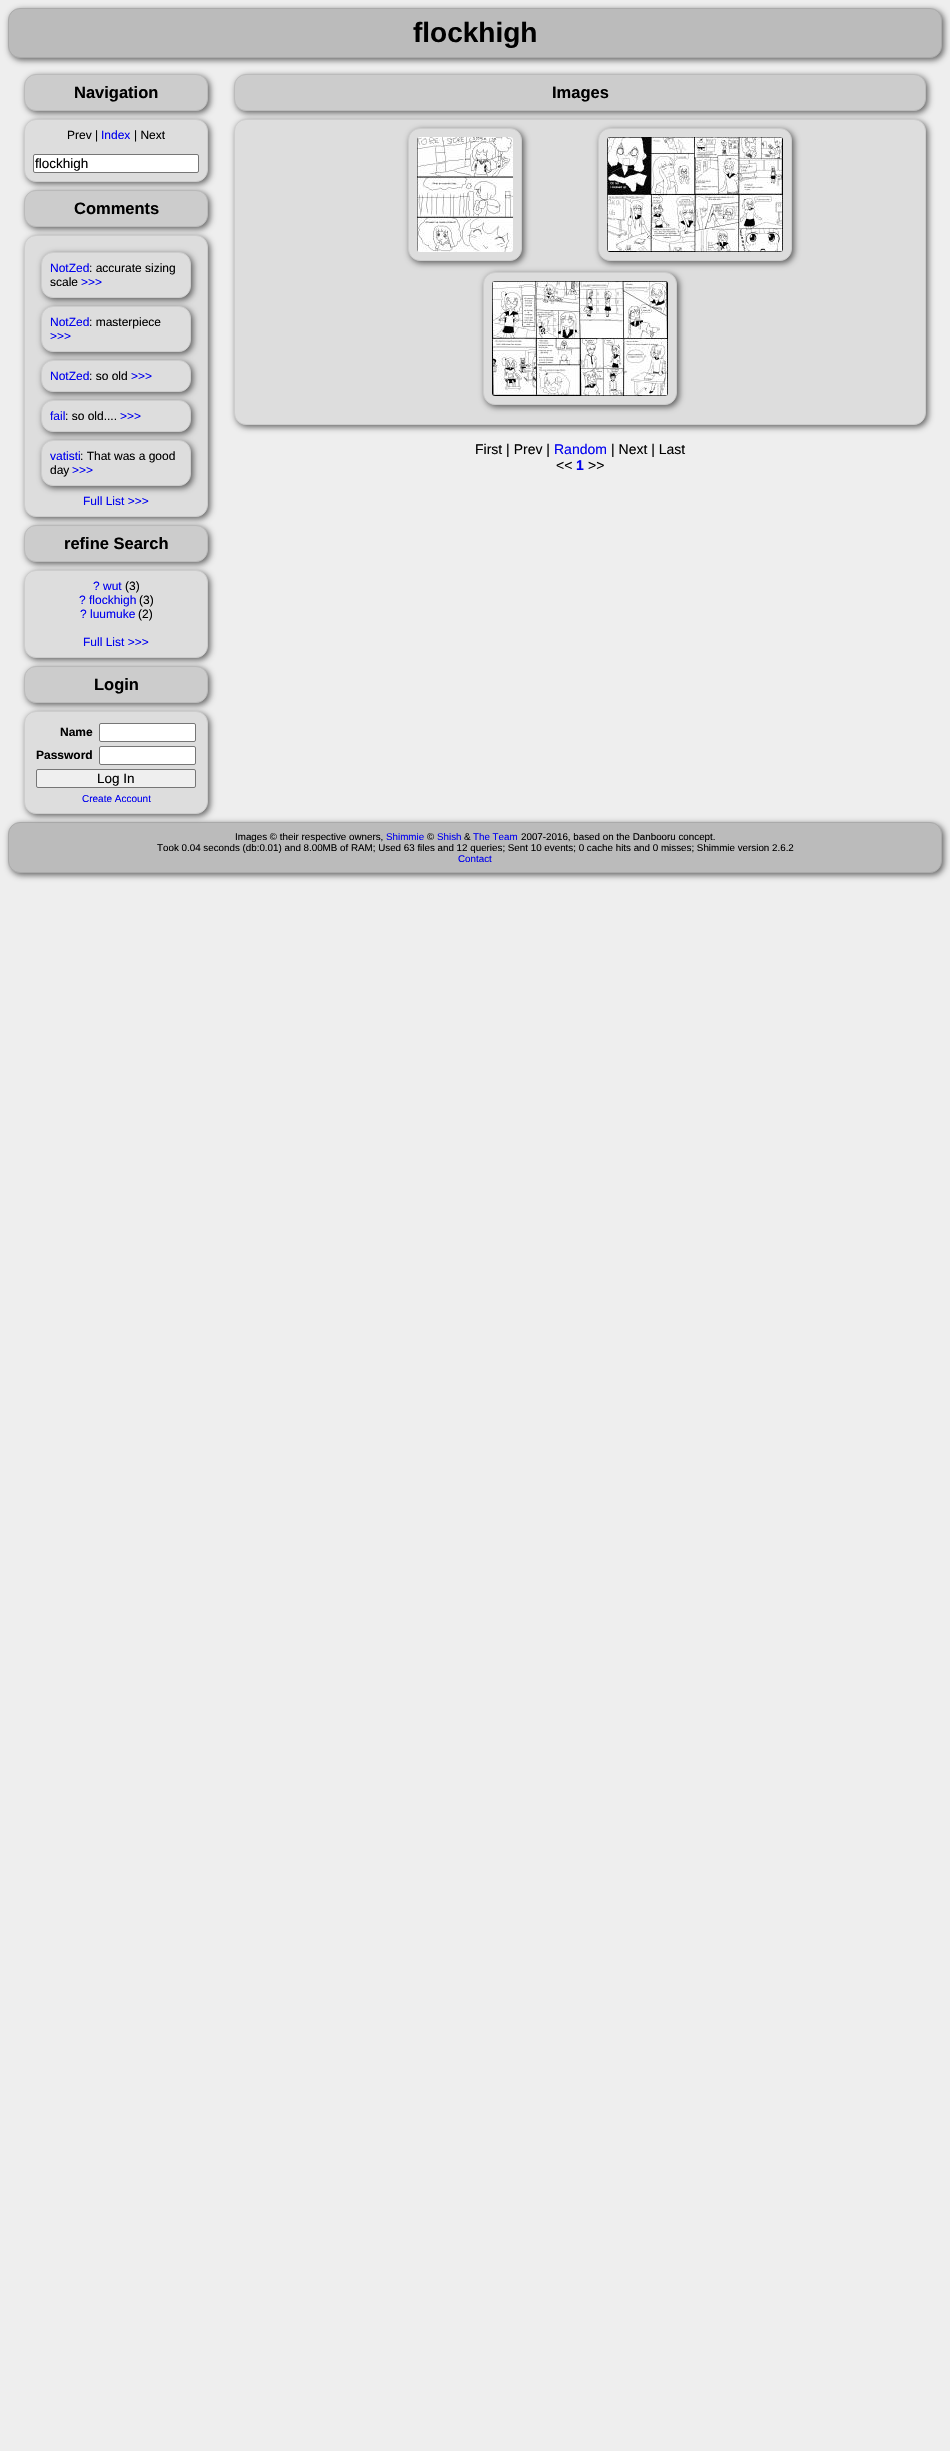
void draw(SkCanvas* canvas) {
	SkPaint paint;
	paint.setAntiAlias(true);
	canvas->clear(0xffeeeeee);
	paint.setColor(0x99000000);
	paint.setMaskFilter(SkMaskFilter::MakeBlur(kNormal_SkBlurStyle, 3));
	canvas->drawRoundRect(SkRect::MakeXYWH(10, 10, 934, 50), 12, 12, paint);
	paint.setMaskFilter(nullptr);
	paint.setColor(0xffbbbbbb);
	canvas->drawRoundRect(SkRect::MakeXYWH(8.5, 8.5, 933, 49), 11.5, 11.5, paint);
	paint.setStroke(true);
	paint.setStrokeWidth(1);
	paint.setColor(0xffaaaaaa);
	canvas->drawRoundRect(SkRect::MakeXYWH(8.5, 8.5, 933, 49), 11.5, 11.5, paint);
	SkFont f1(fontMgr->matchFamilyStyle("Liberation Sans", SkFontStyle::Bold()), 28);
	f1.setSubpixel(true);
	paint.setStroke(false);
	paint.setColor(0xff000000);
	canvas->drawString("flockhigh", 413, 42, f1, paint);
	paint.setColor(0x99000000);
	paint.setMaskFilter(SkMaskFilter::MakeBlur(kNormal_SkBlurStyle, 3));
	canvas->drawRoundRect(SkRect::MakeXYWH(26, 76, 184, 37), 12, 12, paint);
	paint.setMaskFilter(nullptr);
	paint.setColor(0xffcccccc);
	canvas->drawRoundRect(SkRect::MakeXYWH(24.5, 74.5, 183, 36), 11.5, 11.5, paint);
	paint.setStroke(true);
	paint.setColor(0xffbbbbbb);
	canvas->drawRoundRect(SkRect::MakeXYWH(24.5, 74.5, 183, 36), 11.5, 11.5, paint);
	SkFont f2(fontMgr->matchFamilyStyle("Liberation Sans", SkFontStyle::Bold()), 16.5);
	f2.setSubpixel(true);
	paint.setStroke(false);
	paint.setColor(0xff000000);
	canvas->drawString("Navigation", 74, 98, f2, paint);
	paint.setColor(0x99000000);
	paint.setMaskFilter(SkMaskFilter::MakeBlur(kNormal_SkBlurStyle, 3));
	canvas->drawRoundRect(SkRect::MakeXYWH(26, 192, 184, 37), 12, 12, paint);
	paint.setMaskFilter(nullptr);
	paint.setColor(0xffcccccc);
	canvas->drawRoundRect(SkRect::MakeXYWH(24.5, 190.5, 183, 36), 11.5, 11.5, paint);
	paint.setStroke(true);
	paint.setColor(0xffbbbbbb);
	canvas->drawRoundRect(SkRect::MakeXYWH(24.5, 190.5, 183, 36), 11.5, 11.5, paint);
	paint.setStroke(false);
	paint.setColor(0x99000000);
	paint.setMaskFilter(SkMaskFilter::MakeBlur(kNormal_SkBlurStyle, 3));
	canvas->drawRoundRect(SkRect::MakeXYWH(26, 121, 184, 63), 12, 12, paint);
	paint.setMaskFilter(nullptr);
	paint.setColor(0xffdddddd);
	canvas->drawRoundRect(SkRect::MakeXYWH(24.5, 119.5, 183, 62), 11.5, 11.5, paint);
	paint.setStroke(true);
	paint.setColor(0xffcccccc);
	canvas->drawRoundRect(SkRect::MakeXYWH(24.5, 119.5, 183, 62), 11.5, 11.5, paint);
	SkFont f3(fontMgr->matchFamilyStyle("Liberation Sans", SkFontStyle::Normal()), 12);
	f3.setSubpixel(true);
	paint.setStroke(false);
	paint.setColor(0xff000000);
	canvas->drawString("Prev |", 67, 139, f3, paint);
	paint.setColor(0xff0000ee);
	canvas->drawString("Index", 101, 139, f3, paint);
	paint.setColor(0xff000000);
	canvas->drawString("| Next", 134, 139, f3, paint);
	paint.setColor(0xffffffff);
	canvas->drawRoundRect(SkRect::MakeXYWH(33.5, 154.5, 165, 18), 1.5, 1.5, paint);
	paint.setStroke(true);
	paint.setColor(0xff767676);
	canvas->drawRoundRect(SkRect::MakeXYWH(33.5, 154.5, 165, 18), 1.5, 1.5, paint);
	SkFont f4(fontMgr->matchFamilyStyle("Liberation Sans", SkFontStyle::Normal()), 13.5);
	f4.setSubpixel(true);
	paint.setStroke(false);
	paint.setColor(0xff000000);
	canvas->drawString("flockhigh", 35, 168, f4, paint);
	canvas->drawString("Comments", 74, 214, f2, paint);
	paint.setColor(0x99000000);
	paint.setMaskFilter(SkMaskFilter::MakeBlur(kNormal_SkBlurStyle, 3));
	canvas->drawRoundRect(SkRect::MakeXYWH(26, 527, 184, 37), 12, 12, paint);
	paint.setMaskFilter(nullptr);
	paint.setColor(0xffcccccc);
	canvas->drawRoundRect(SkRect::MakeXYWH(24.5, 525.5, 183, 36), 11.5, 11.5, paint);
	paint.setStroke(true);
	paint.setColor(0xffbbbbbb);
	canvas->drawRoundRect(SkRect::MakeXYWH(24.5, 525.5, 183, 36), 11.5, 11.5, paint);
	paint.setStroke(false);
	paint.setColor(0x99000000);
	paint.setMaskFilter(SkMaskFilter::MakeBlur(kNormal_SkBlurStyle, 3));
	canvas->drawRoundRect(SkRect::MakeXYWH(26, 237, 184, 282), 12, 12, paint);
	paint.setMaskFilter(nullptr);
	paint.setColor(0xffdddddd);
	canvas->drawRoundRect(SkRect::MakeXYWH(24.5, 235.5, 183, 281), 11.5, 11.5, paint);
	paint.setStroke(true);
	paint.setColor(0xffcccccc);
	canvas->drawRoundRect(SkRect::MakeXYWH(24.5, 235.5, 183, 281), 11.5, 11.5, paint);
	paint.setStroke(false);
	paint.setColor(0x99000000);
	paint.setMaskFilter(SkMaskFilter::MakeBlur(kNormal_SkBlurStyle, 3));
	canvas->drawRoundRect(SkRect::MakeXYWH(43, 254, 150, 46), 12, 12, paint);
	paint.setMaskFilter(nullptr);
	paint.setColor(0xffdddddd);
	canvas->drawRoundRect(SkRect::MakeXYWH(41.5, 252.5, 149, 45), 11.5, 11.5, paint);
	paint.setStroke(true);
	paint.setColor(0xffcccccc);
	canvas->drawRoundRect(SkRect::MakeXYWH(41.5, 252.5, 149, 45), 11.5, 11.5, paint);
	paint.setStroke(false);
	paint.setColor(0xff0000ee);
	canvas->drawString("NotZed", 50, 272, f3, paint);
	paint.setColor(0xff000000);
	canvas->drawString(": accurate sizing", 89, 272, f3, paint);
	canvas->drawString("scale", 50, 286, f3, paint);
	paint.setColor(0xff0000ee);
	canvas->drawString(">>>", 81, 286, f3, paint);
	paint.setColor(0x99000000);
	paint.setMaskFilter(SkMaskFilter::MakeBlur(kNormal_SkBlurStyle, 3));
	canvas->drawRoundRect(SkRect::MakeXYWH(43, 308, 150, 46), 12, 12, paint);
	paint.setMaskFilter(nullptr);
	paint.setColor(0xffdddddd);
	canvas->drawRoundRect(SkRect::MakeXYWH(41.5, 306.5, 149, 45), 11.5, 11.5, paint);
	paint.setStroke(true);
	paint.setColor(0xffcccccc);
	canvas->drawRoundRect(SkRect::MakeXYWH(41.5, 306.5, 149, 45), 11.5, 11.5, paint);
	paint.setStroke(false);
	paint.setColor(0xff0000ee);
	canvas->drawString("NotZed", 50, 326, f3, paint);
	paint.setColor(0xff000000);
	canvas->drawString(": masterpiece", 89, 326, f3, paint);
	paint.setColor(0xff0000ee);
	canvas->drawString(">>>", 50, 340, f3, paint);
	paint.setColor(0x99000000);
	paint.setMaskFilter(SkMaskFilter::MakeBlur(kNormal_SkBlurStyle, 3));
	canvas->drawRoundRect(SkRect::MakeXYWH(43, 362, 150, 32), 12, 12, paint);
	paint.setMaskFilter(nullptr);
	paint.setColor(0xffdddddd);
	canvas->drawRoundRect(SkRect::MakeXYWH(41.5, 360.5, 149, 31), 11.5, 11.5, paint);
	paint.setStroke(true);
	paint.setColor(0xffcccccc);
	canvas->drawRoundRect(SkRect::MakeXYWH(41.5, 360.5, 149, 31), 11.5, 11.5, paint);
	paint.setStroke(false);
	paint.setColor(0xff0000ee);
	canvas->drawString("NotZed", 50, 380, f3, paint);
	paint.setColor(0xff000000);
	canvas->drawString(": so old", 89, 380, f3, paint);
	paint.setColor(0xff0000ee);
	canvas->drawString(">>>", 131, 380, f3, paint);
	paint.setColor(0x99000000);
	paint.setMaskFilter(SkMaskFilter::MakeBlur(kNormal_SkBlurStyle, 3));
	canvas->drawRoundRect(SkRect::MakeXYWH(43, 402, 150, 32), 12, 12, paint);
	paint.setMaskFilter(nullptr);
	paint.setColor(0xffdddddd);
	canvas->drawRoundRect(SkRect::MakeXYWH(41.5, 400.5, 149, 31), 11.5, 11.5, paint);
	paint.setStroke(true);
	paint.setColor(0xffcccccc);
	canvas->drawRoundRect(SkRect::MakeXYWH(41.5, 400.5, 149, 31), 11.5, 11.5, paint);
	paint.setStroke(false);
	paint.setColor(0xff0000ee);
	canvas->drawString("fail", 50, 420, f3, paint);
	paint.setColor(0xff000000);
	canvas->drawString(": so old....", 65, 420, f3, paint);
	paint.setColor(0xff0000ee);
	canvas->drawString(">>>", 120, 420, f3, paint);
	paint.setColor(0x99000000);
	paint.setMaskFilter(SkMaskFilter::MakeBlur(kNormal_SkBlurStyle, 3));
	canvas->drawRoundRect(SkRect::MakeXYWH(43, 442, 150, 46), 12, 12, paint);
	paint.setMaskFilter(nullptr);
	paint.setColor(0xffdddddd);
	canvas->drawRoundRect(SkRect::MakeXYWH(41.5, 440.5, 149, 45), 11.5, 11.5, paint);
	paint.setStroke(true);
	paint.setColor(0xffcccccc);
	canvas->drawRoundRect(SkRect::MakeXYWH(41.5, 440.5, 149, 45), 11.5, 11.5, paint);
	paint.setStroke(false);
	paint.setColor(0xff0000ee);
	canvas->drawString("vatisti", 50, 460, f3, paint);
	paint.setColor(0xff000000);
	canvas->drawString(": That was a good", 80, 460, f3, paint);
	canvas->drawString("day", 50, 474, f3, paint);
	paint.setColor(0xff0000ee);
	canvas->drawString(">>>", 72, 474, f3, paint);
	canvas->drawString("Full List >>>", 83, 505, f3, paint);
	paint.setColor(0xff000000);
	canvas->drawString("refine Search", 64, 549, f2, paint);
	paint.setColor(0x99000000);
	paint.setMaskFilter(SkMaskFilter::MakeBlur(kNormal_SkBlurStyle, 3));
	canvas->drawRoundRect(SkRect::MakeXYWH(26, 668, 184, 37), 12, 12, paint);
	paint.setMaskFilter(nullptr);
	paint.setColor(0xffcccccc);
	canvas->drawRoundRect(SkRect::MakeXYWH(24.5, 666.5, 183, 36), 11.5, 11.5, paint);
	paint.setStroke(true);
	paint.setColor(0xffbbbbbb);
	canvas->drawRoundRect(SkRect::MakeXYWH(24.5, 666.5, 183, 36), 11.5, 11.5, paint);
	paint.setStroke(false);
	paint.setColor(0x99000000);
	paint.setMaskFilter(SkMaskFilter::MakeBlur(kNormal_SkBlurStyle, 3));
	canvas->drawRoundRect(SkRect::MakeXYWH(26, 572, 184, 88), 12, 12, paint);
	paint.setMaskFilter(nullptr);
	paint.setColor(0xffdddddd);
	canvas->drawRoundRect(SkRect::MakeXYWH(24.5, 570.5, 183, 87), 11.5, 11.5, paint);
	paint.setStroke(true);
	paint.setColor(0xffcccccc);
	canvas->drawRoundRect(SkRect::MakeXYWH(24.5, 570.5, 183, 87), 11.5, 11.5, paint);
	paint.setStroke(false);
	paint.setColor(0xff0000ee);
	canvas->drawString("? wut", 93, 590, f3, paint);
	paint.setColor(0xff000000);
	canvas->drawString("(3)", 125, 590, f3, paint);
	paint.setColor(0xff0000ee);
	canvas->drawString("? flockhigh", 79, 604, f3, paint);
	paint.setColor(0xff000000);
	canvas->drawString("(3)", 139, 604, f3, paint);
	paint.setColor(0xff0000ee);
	canvas->drawString("? luumuke", 80, 618, f3, paint);
	paint.setColor(0xff000000);
	canvas->drawString("(2)", 138, 618, f3, paint);
	paint.setColor(0xff0000ee);
	canvas->drawString("Full List >>>", 83, 646, f3, paint);
	paint.setColor(0xff000000);
	canvas->drawString("Login", 94, 690, f2, paint);
	paint.setColor(0x99000000);
	paint.setMaskFilter(SkMaskFilter::MakeBlur(kNormal_SkBlurStyle, 3));
	canvas->drawRoundRect(SkRect::MakeXYWH(10, 824, 934, 51), 12, 12, paint);
	paint.setMaskFilter(nullptr);
	paint.setColor(0xffbbbbbb);
	canvas->drawRoundRect(SkRect::MakeXYWH(8.5, 822.5, 933, 50), 11.5, 11.5, paint);
	paint.setStroke(true);
	paint.setColor(0xffaaaaaa);
	canvas->drawRoundRect(SkRect::MakeXYWH(8.5, 822.5, 933, 50), 11.5, 11.5, paint);
	paint.setStroke(false);
	paint.setColor(0x99000000);
	paint.setMaskFilter(SkMaskFilter::MakeBlur(kNormal_SkBlurStyle, 3));
	canvas->drawRoundRect(SkRect::MakeXYWH(26, 713, 184, 103), 12, 12, paint);
	paint.setMaskFilter(nullptr);
	paint.setColor(0xffdddddd);
	canvas->drawRoundRect(SkRect::MakeXYWH(24.5, 711.5, 183, 102), 11.5, 11.5, paint);
	paint.setStroke(true);
	paint.setColor(0xffcccccc);
	canvas->drawRoundRect(SkRect::MakeXYWH(24.5, 711.5, 183, 102), 11.5, 11.5, paint);
	SkFont f5(fontMgr->matchFamilyStyle("Liberation Sans", SkFontStyle::Bold()), 12);
	f5.setSubpixel(true);
	paint.setStroke(false);
	paint.setColor(0xff000000);
	canvas->drawString("Name", 60, 736, f5, paint);
	paint.setColor(0xffffffff);
	canvas->drawRoundRect(SkRect::MakeXYWH(99.5, 723.5, 96, 18), 1.5, 1.5, paint);
	paint.setStroke(true);
	paint.setColor(0xff767676);
	canvas->drawRoundRect(SkRect::MakeXYWH(99.5, 723.5, 96, 18), 1.5, 1.5, paint);
	paint.setStroke(false);
	paint.setColor(0xff000000);
	canvas->drawString("Password", 36, 759, f5, paint);
	paint.setColor(0xffffffff);
	canvas->drawRoundRect(SkRect::MakeXYWH(99.5, 746.5, 96, 18), 1.5, 1.5, paint);
	paint.setStroke(true);
	paint.setColor(0xff767676);
	canvas->drawRoundRect(SkRect::MakeXYWH(99.5, 746.5, 96, 18), 1.5, 1.5, paint);
	paint.setStroke(false);
	paint.setColor(0xffefefef);
	canvas->drawRoundRect(SkRect::MakeXYWH(36.5, 769.5, 159, 18), 1.5, 1.5, paint);
	paint.setStroke(true);
	paint.setColor(0xff767676);
	canvas->drawRoundRect(SkRect::MakeXYWH(36.5, 769.5, 159, 18), 1.5, 1.5, paint);
	paint.setStroke(false);
	paint.setColor(0xff000000);
	canvas->drawString("Log In", 97, 783, f4, paint);
	SkFont f6(fontMgr->matchFamilyStyle("Liberation Sans", SkFontStyle::Normal()), 10);
	f6.setSubpixel(true);
	paint.setColor(0xff0000ee);
	canvas->drawString("Create Account", 82, 802, f6, paint);
	paint.setColor(0x99000000);
	paint.setMaskFilter(SkMaskFilter::MakeBlur(kNormal_SkBlurStyle, 3));
	canvas->drawRoundRect(SkRect::MakeXYWH(236, 76, 692, 37), 12, 12, paint);
	paint.setMaskFilter(nullptr);
	paint.setColor(0xffcccccc);
	canvas->drawRoundRect(SkRect::MakeXYWH(234.5, 74.5, 691, 36), 11.5, 11.5, paint);
	paint.setStroke(true);
	paint.setColor(0xffbbbbbb);
	canvas->drawRoundRect(SkRect::MakeXYWH(234.5, 74.5, 691, 36), 11.5, 11.5, paint);
	paint.setStroke(false);
	paint.setColor(0xff000000);
	canvas->drawString("Images", 552, 98, f2, paint);
	paint.setColor(0x99000000);
	paint.setMaskFilter(SkMaskFilter::MakeBlur(kNormal_SkBlurStyle, 3));
	canvas->drawRoundRect(SkRect::MakeXYWH(236, 121, 692, 306), 12, 12, paint);
	paint.setMaskFilter(nullptr);
	paint.setColor(0xffdddddd);
	canvas->drawRoundRect(SkRect::MakeXYWH(234.5, 119.5, 691, 305), 11.5, 11.5, paint);
	paint.setStroke(true);
	paint.setColor(0xffcccccc);
	canvas->drawRoundRect(SkRect::MakeXYWH(234.5, 119.5, 691, 305), 11.5, 11.5, paint);
	paint.setStroke(false);
	paint.setColor(0x99000000);
	paint.setMaskFilter(SkMaskFilter::MakeBlur(kNormal_SkBlurStyle, 3));
	canvas->drawRoundRect(SkRect::MakeXYWH(410, 130, 114, 133), 12, 12, paint);
	paint.setMaskFilter(nullptr);
	paint.setColor(0xffdddddd);
	canvas->drawRoundRect(SkRect::MakeXYWH(408.5, 128.5, 113, 132), 11.5, 11.5, paint);
	paint.setStroke(true);
	paint.setColor(0xffcccccc);
	canvas->drawRoundRect(SkRect::MakeXYWH(408.5, 128.5, 113, 132), 11.5, 11.5, paint);
	canvas->drawImageRect(SkImages::DeferredFromEncodedData(SkData::MakeFromFileName("img1.png")), SkRect::MakeXYWH(417, 137, 96, 115), SkSamplingOptions());
	paint.setStroke(false);
	paint.setColor(0x99000000);
	paint.setMaskFilter(SkMaskFilter::MakeBlur(kNormal_SkBlurStyle, 3));
	canvas->drawRoundRect(SkRect::MakeXYWH(600, 130, 194, 133), 12, 12, paint);
	paint.setMaskFilter(nullptr);
	paint.setColor(0xffdddddd);
	canvas->drawRoundRect(SkRect::MakeXYWH(598.5, 128.5, 193, 132), 11.5, 11.5, paint);
	paint.setStroke(true);
	paint.setColor(0xffcccccc);
	canvas->drawRoundRect(SkRect::MakeXYWH(598.5, 128.5, 193, 132), 11.5, 11.5, paint);
	canvas->drawImageRect(SkImages::DeferredFromEncodedData(SkData::MakeFromFileName("img2.png")), SkRect::MakeXYWH(607, 137, 176, 115), SkSamplingOptions());
	paint.setStroke(false);
	paint.setColor(0x99000000);
	paint.setMaskFilter(SkMaskFilter::MakeBlur(kNormal_SkBlurStyle, 3));
	canvas->drawRoundRect(SkRect::MakeXYWH(485, 274, 194, 133), 12, 12, paint);
	paint.setMaskFilter(nullptr);
	paint.setColor(0xffdddddd);
	canvas->drawRoundRect(SkRect::MakeXYWH(483.5, 272.5, 193, 132), 11.5, 11.5, paint);
	paint.setStroke(true);
	paint.setColor(0xffcccccc);
	canvas->drawRoundRect(SkRect::MakeXYWH(483.5, 272.5, 193, 132), 11.5, 11.5, paint);
	canvas->drawImageRect(SkImages::DeferredFromEncodedData(SkData::MakeFromFileName("img3.png")), SkRect::MakeXYWH(492, 281, 176, 115), SkSamplingOptions());
	SkFont f7(fontMgr->matchFamilyStyle("Liberation Sans", SkFontStyle::Normal()), 14);
	f7.setSubpixel(true);
	paint.setStroke(false);
	paint.setColor(0xff000000);
	canvas->drawString("First | Prev |", 475, 454, f7, paint);
	paint.setColor(0xff0000ee);
	canvas->drawString("Random", 554, 454, f7, paint);
	paint.setColor(0xff000000);
	canvas->drawString("| Next | Last", 611, 454, f7, paint);
	canvas->drawString("<<", 556, 470, f7, paint);
	SkFont f8(fontMgr->matchFamilyStyle("Liberation Sans", SkFontStyle::Bold()), 14);
	f8.setSubpixel(true);
	paint.setColor(0xff0000ee);
	canvas->drawString("1", 576, 470, f8, paint);
	paint.setColor(0xff000000);
	canvas->drawString(">>", 588, 470, f7, paint);
	SkFont f9(fontMgr->matchFamilyStyle("Liberation Sans", SkFontStyle::Normal()), 9.8);
	f9.setSubpixel(true);
	canvas->drawString("Images © their respective owners,", 235, 840, f9, paint);
	paint.setColor(0xff0000ee);
	canvas->drawString("Shimmie", 386, 840, f9, paint);
	paint.setColor(0xff000000);
	canvas->drawString("©", 427, 840, f9, paint);
	paint.setColor(0xff0000ee);
	canvas->drawString("Shish", 437, 840, f9, paint);
	paint.setColor(0xff000000);
	canvas->drawString("&", 464, 840, f9, paint);
	paint.setColor(0xff0000ee);
	canvas->drawString("The Team", 473, 840, f9, paint);
	paint.setColor(0xff000000);
	canvas->drawString("2007-2016, based on the Danbooru concept.", 521, 840, f9, paint);
	canvas->drawString("Took 0.04 seconds (db:0.01) and 8.00MB of RAM; Used 63 files and 12 queries; Sent 10 events; 0 cache hits and 0 misses; Shimmie version 2.6.2", 157, 851, f9, paint);
	paint.setColor(0xff0000ee);
	canvas->drawString("Contact", 458, 862, f9, paint);
}
